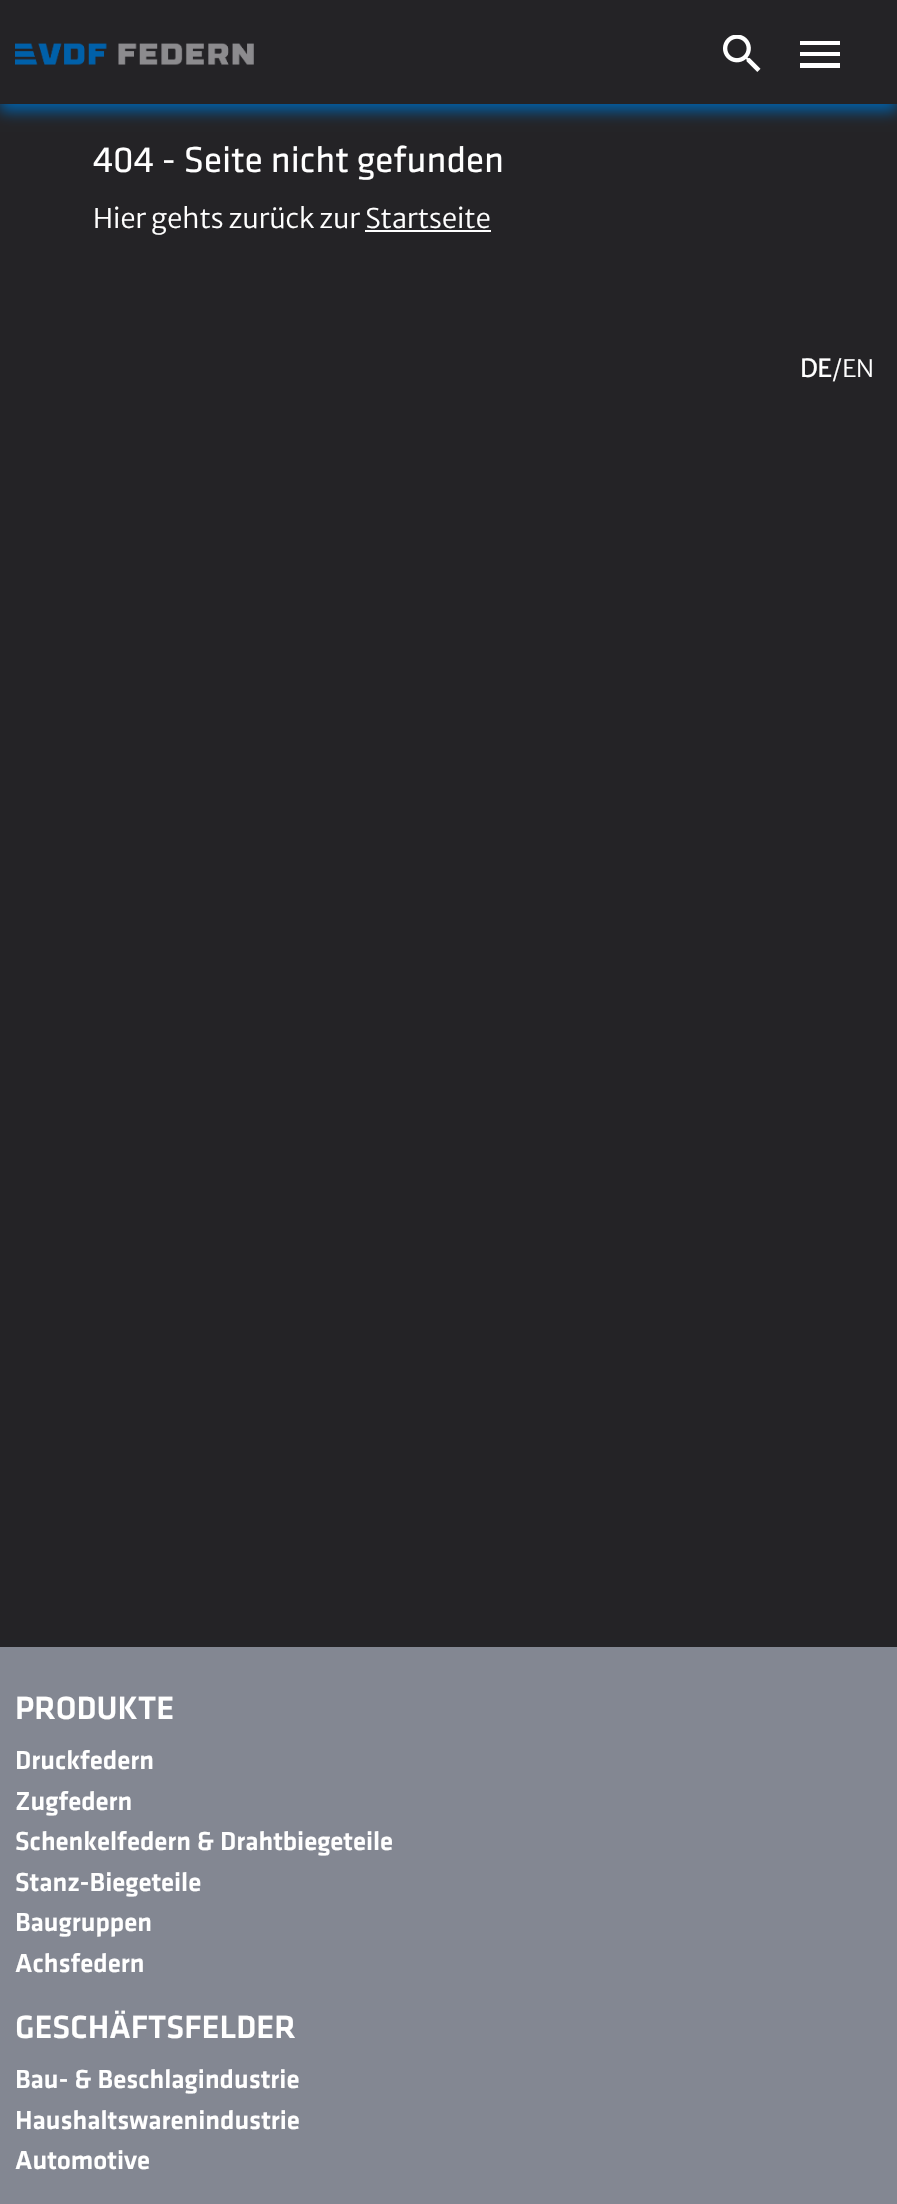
void draw(SkCanvas* canvas) {
	SkPaint paint;
	paint.setAntiAlias(true);
	auto svgPath = [&](const char* data, bool evenOdd = false) {
		SkPath result = *SkParsePath::FromSVGString(data);
		if (evenOdd) result.setFillType(SkPathFillType::kEvenOdd);
		return result;
	};
	canvas->clear(0xff242326);
	paint.setColor(0xff0060a9);
	paint.setMaskFilter(SkMaskFilter::MakeBlur(kNormal_SkBlurStyle, 7));
	canvas->drawRect(SkRect::MakeXYWH(0, 8, 897, 103), paint);
	paint.setMaskFilter(nullptr);
	paint.setColor(0xff242326);
	canvas->drawRect(SkRect::MakeXYWH(0, 0, 897, 104), paint);
	canvas->drawImageRect(SkImages::DeferredFromEncodedData(SkData::MakeFromFileName("img1.png")), SkRect::MakeXYWH(15, 43, 239, 22), SkSamplingOptions());
	canvas->drawImageRect(SkImages::DeferredFromEncodedData(SkData::MakeFromFileName("img2.png")), SkRect::MakeXYWH(723, 35, 38, 37), SkSamplingOptions());
	canvas->save();
	canvas->clipRect(SkRect::MakeXYWH(800, 41, 40, 27));
	paint.setColor(0xffffffff);
	canvas->drawPath(svgPath("M800 68H840V63H800ZM800 56H840V52H800ZM800 40V45H840V40Z"), paint);
	canvas->restore();
	SkFont f1(fontMgr->matchFamilyStyle("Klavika", SkFontStyle::Normal()), 37.4);
	f1.setSubpixel(true);
	canvas->drawString("404 - Seite nicht gefunden", 93, 172, f1, paint);
	SkFont f2(fontMgr->matchFamilyStyle("Merriweather Sans", SkFontStyle(300, SkFontStyle::kNormal_Width, SkFontStyle::kUpright_Slant)), 27);
	f2.setSubpixel(true);
	canvas->drawString("Hier gehts zurück zur Startseite", 93, 228, f2, paint);
	canvas->drawRect(SkRect::MakeXYWH(365, 230, 126, 2), paint);
	SkFont f3(fontMgr->matchFamilyStyle("Merriweather Sans", SkFontStyle::Bold()), 24);
	f3.setSubpixel(true);
	canvas->drawString("DE", 800, 377, f3, paint);
	SkFont f4(fontMgr->matchFamilyStyle("Merriweather Sans", SkFontStyle(300, SkFontStyle::kNormal_Width, SkFontStyle::kUpright_Slant)), 24);
	f4.setSubpixel(true);
	canvas->drawString("/EN", 832, 377, f4, paint);
	paint.setColor(0xff838792);
	canvas->drawRect(SkRect::MakeXYWH(0, 1647, 897, 557), paint);
	SkFont f5(fontMgr->matchFamilyStyle("Klavika", SkFontStyle(500, SkFontStyle::kNormal_Width, SkFontStyle::kUpright_Slant)), 33.25);
	f5.setSubpixel(true);
	paint.setColor(0xffffffff);
	canvas->drawString("PRODUKTE", 15, 1719, f5, paint);
	SkFont f6(fontMgr->matchFamilyStyle("Klavika", SkFontStyle(500, SkFontStyle::kNormal_Width, SkFontStyle::kUpright_Slant)), 27);
	f6.setSubpixel(true);
	canvas->drawString("Druckfedern", 15, 1769, f6, paint);
	canvas->drawString("Zugfedern", 15, 1810, f6, paint);
	canvas->drawString("Schenkelfedern & Drahtbiegeteile", 15, 1850, f6, paint);
	canvas->drawString("Stanz-Biegeteile", 15, 1891, f6, paint);
	canvas->drawString("Baugruppen", 15, 1931, f6, paint);
	canvas->drawString("Achsfedern", 15, 1972, f6, paint);
	canvas->drawString("GESCHÄFTSFELDER", 15, 2038, f5, paint);
	canvas->drawString("Bau- & Beschlagindustrie", 15, 2088, f6, paint);
	canvas->drawString("Haushaltswarenindustrie", 15, 2129, f6, paint);
	canvas->drawString("Automotive", 15, 2169, f6, paint);
}
